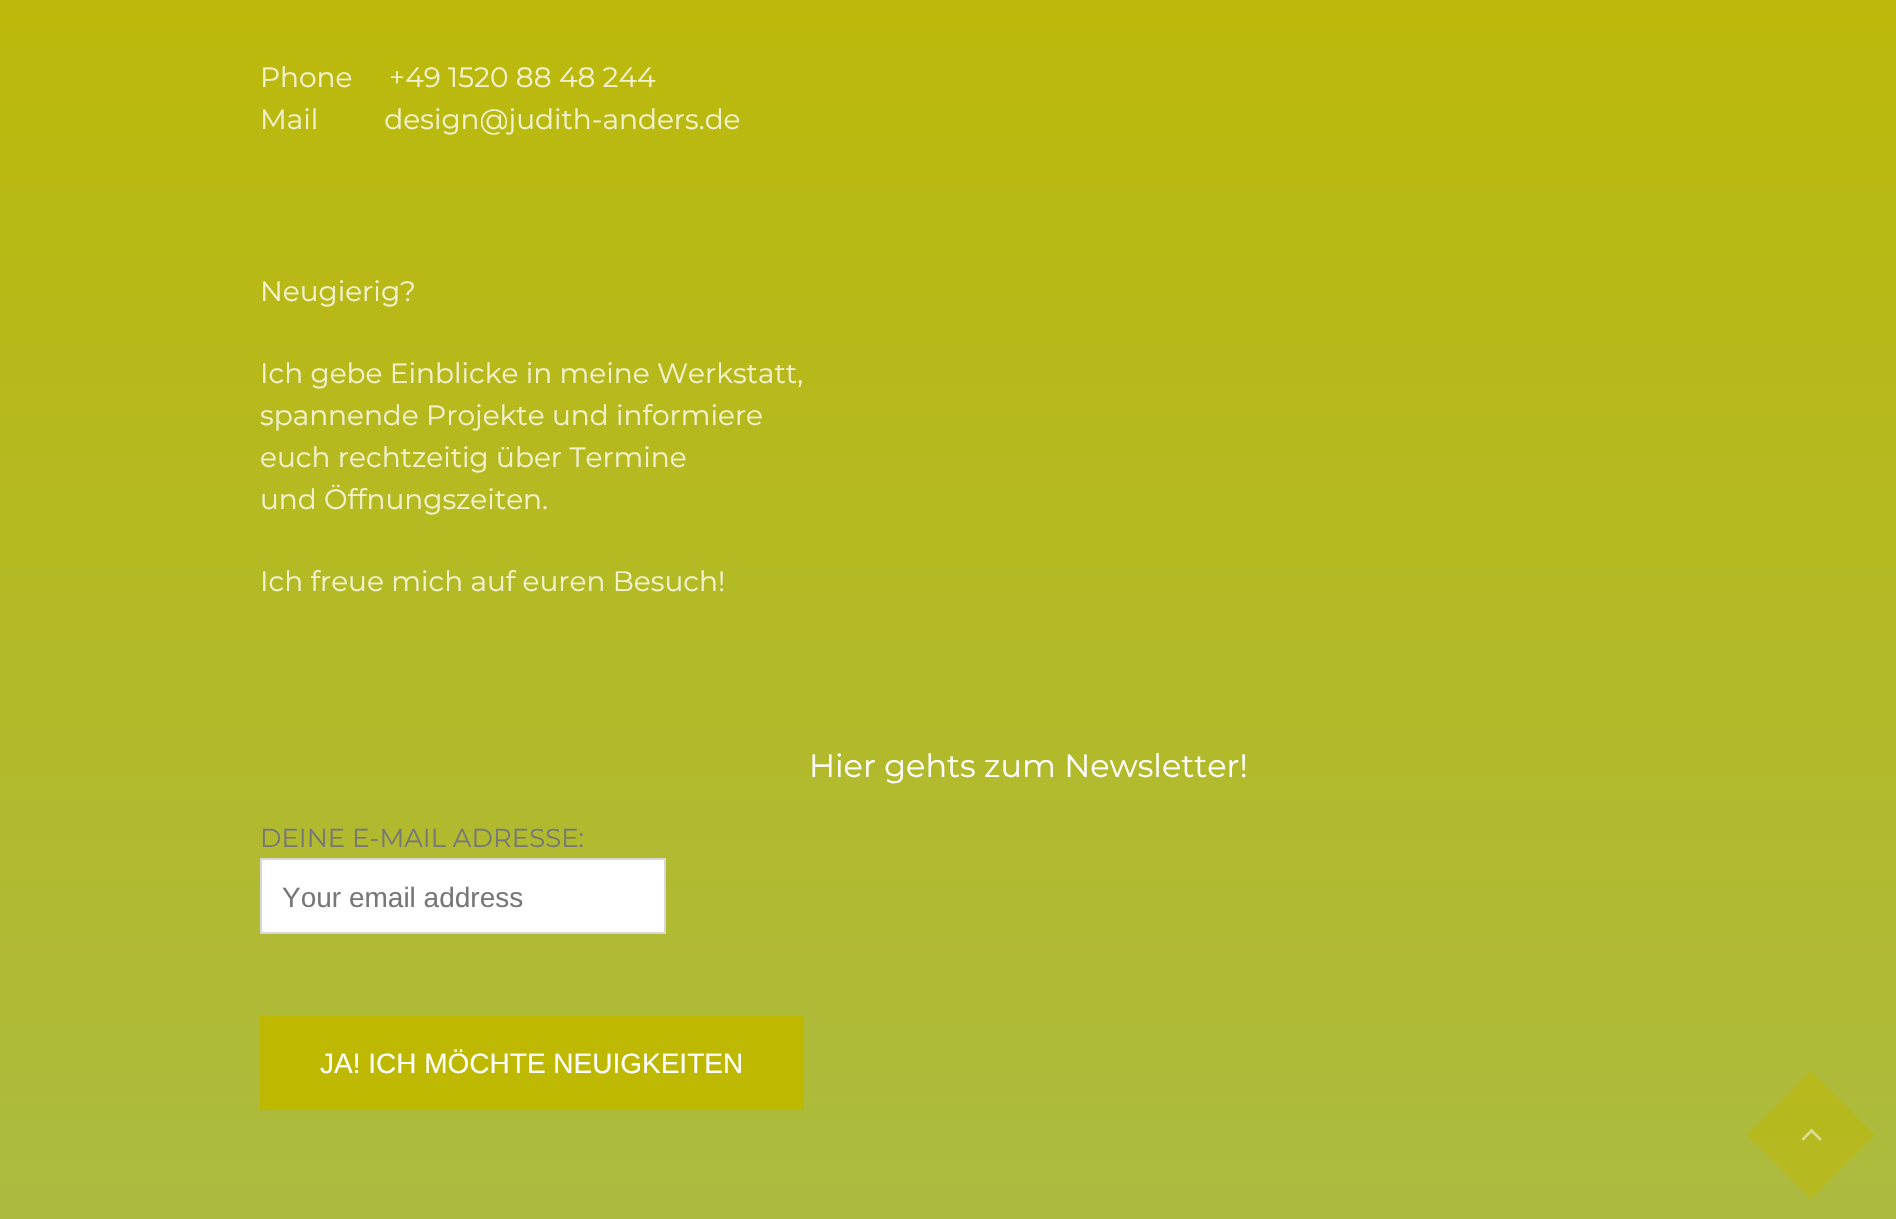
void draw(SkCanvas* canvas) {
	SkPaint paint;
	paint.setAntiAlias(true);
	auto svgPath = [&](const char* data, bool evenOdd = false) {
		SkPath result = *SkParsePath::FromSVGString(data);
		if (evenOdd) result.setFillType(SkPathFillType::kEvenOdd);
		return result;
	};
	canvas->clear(0xffffffff);
	{
		const SkColor colors[] = {0xffacbb40, 0xffbfb800};
		const float stops[] = {0, 1};
		const SkPoint ends[] = {{948, 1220}, {948, -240}};
		paint.setShader(SkGradientShader::MakeLinear(ends, colors, stops, 2, SkTileMode::kClamp));
		paint.setAlpha(255);
	}
	canvas->drawRect(SkRect::MakeXYWH(0, 0, 1896, 1219), paint);
	SkFont f1(fontMgr->matchFamilyStyle("Montserrat", SkFontStyle::Normal()), 28);
	f1.setSubpixel(true);
	paint.setShader(nullptr);
	paint.setColor(0xfff1f1cf);
	canvas->drawString("Phone     +49 1520 88 48 244", 260, 87, f1, paint);
	canvas->drawString("Mail         design@judith-anders.de", 260, 129, f1, paint);
	canvas->drawString("Neugierig?", 260, 301, f1, paint);
	canvas->drawString("Ich gebe Einblicke in meine Werkstatt,", 260, 383, f1, paint);
	canvas->drawString("spannende Projekte und informiere", 260, 425, f1, paint);
	canvas->drawString("euch rechtzeitig über Termine", 260, 467, f1, paint);
	canvas->drawString("und Öffnungszeiten.", 260, 509, f1, paint);
	canvas->drawString("Ich freue mich auf euren Besuch!", 260, 591, f1, paint);
	SkFont f2(fontMgr->matchFamilyStyle("Montserrat", SkFontStyle::Normal()), 32);
	f2.setSubpixel(true);
	paint.setColor(0xffffffff);
	canvas->drawString("Hier gehts zum Newsletter!", 809, 777, f2, paint);
	SkFont f3(fontMgr->matchFamilyStyle("Montserrat", SkFontStyle::Normal()), 26);
	f3.setSubpixel(true);
	paint.setColor(0xff777777);
	canvas->drawString("DEINE E-MAIL ADRESSE:", 260, 847, f3, paint);
	paint.setColor(0xffffffff);
	canvas->drawRect(SkRect::MakeXYWH(261, 859, 404, 74), paint);
	paint.setStroke(true);
	paint.setStrokeWidth(2);
	paint.setColor(0xffd8d8d8);
	canvas->drawRect(SkRect::MakeXYWH(261, 859, 404, 74), paint);
	SkFont f4(fontMgr->matchFamilyStyle("Liberation Sans", SkFontStyle::Normal()), 28);
	f4.setSubpixel(true);
	paint.setStroke(false);
	paint.setColor(0xff777777);
	canvas->drawString("Your email address", 282, 907, f4, paint);
	paint.setColor(0xffbfb800);
	canvas->drawRect(SkRect::MakeXYWH(260, 1016, 544, 94), paint);
	paint.setColor(0xffffffff);
	canvas->drawString("JA! ICH MÖCHTE NEUIGKEITEN", 320, 1073, f4, paint);
	paint.setColor(0x80bfb800);
	canvas->drawPath(svgPath("M1747 1135L1811 1071L1875 1135L1811 1199Z"), paint);
	canvas->drawImageRect(SkImages::DeferredFromEncodedData(SkData::MakeFromFileName("img1.png")), SkRect::MakeXYWH(1801, 1129, 21, 12), SkSamplingOptions());
}
